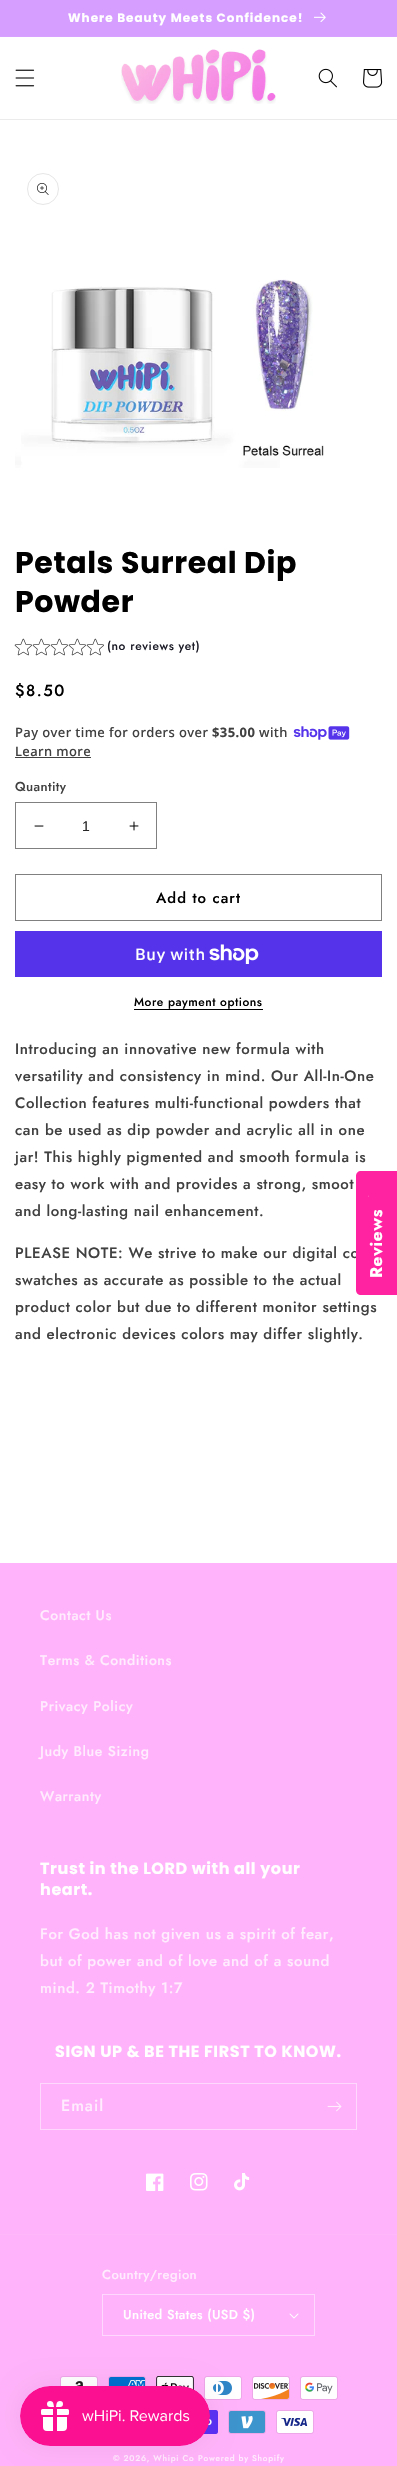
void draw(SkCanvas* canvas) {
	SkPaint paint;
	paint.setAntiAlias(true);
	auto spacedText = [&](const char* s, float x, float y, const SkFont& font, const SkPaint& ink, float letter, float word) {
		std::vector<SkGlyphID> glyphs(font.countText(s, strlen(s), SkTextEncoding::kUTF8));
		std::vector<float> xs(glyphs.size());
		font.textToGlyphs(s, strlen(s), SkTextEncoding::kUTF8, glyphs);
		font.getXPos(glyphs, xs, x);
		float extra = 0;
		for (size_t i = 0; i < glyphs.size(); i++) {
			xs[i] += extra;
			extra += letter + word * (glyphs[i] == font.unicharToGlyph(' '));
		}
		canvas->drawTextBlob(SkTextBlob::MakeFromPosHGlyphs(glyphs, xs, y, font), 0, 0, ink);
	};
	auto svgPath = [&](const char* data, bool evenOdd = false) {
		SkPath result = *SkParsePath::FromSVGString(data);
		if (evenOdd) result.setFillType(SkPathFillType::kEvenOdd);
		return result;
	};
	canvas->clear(0xffffffff);
	paint.setColor(0xffd7a1ff);
	canvas->drawRect(SkRect::MakeXYWH(0, 36, 397, 1), paint);
	paint.setColor(0xffd69fff);
	canvas->drawRect(SkRect::MakeXYWH(0, 0, 397, 36), paint);
	SkFont f1(fontMgr->matchFamilyStyle("Poppins", SkFontStyle::Bold()), 12);
	f1.setSubpixel(true);
	paint.setColor(0xffffffff);
	spacedText("Where Beauty Meets Confidence!", 68, 22, f1, paint, 1, 0);
	canvas->drawImageRect(SkImages::DeferredFromEncodedData(SkData::MakeFromFileName("img1.png")), SkRect::MakeXYWH(314, 12, 12, 10), SkSamplingOptions());
	paint.setColor(0xffebebeb);
	canvas->drawRect(SkRect::MakeXYWH(0, 119, 397, 1), paint);
	canvas->drawImageRect(SkImages::DeferredFromEncodedData(SkData::MakeFromFileName("img2.png")), SkRect::MakeXYWH(15, 69, 20, 18), SkSamplingOptions());
	canvas->drawImageRect(SkImages::DeferredFromEncodedData(SkData::MakeFromFileName("img3.png")), SkRect::MakeXYWH(121, 49, 155, 55), SkSamplingOptions());
	canvas->drawImageRect(SkImages::DeferredFromEncodedData(SkData::MakeFromFileName("img4.png")), SkRect::MakeXYWH(318, 68, 19, 20), SkSamplingOptions());
	canvas->drawImageRect(SkImages::DeferredFromEncodedData(SkData::MakeFromFileName("img5.png")), SkRect::MakeXYWH(363, 69, 20, 19), SkSamplingOptions());
	paint.setStroke(true);
	paint.setStrokeWidth(1);
	paint.setColor(0xffe6e6e6);
	canvas->drawCircle(43, 189, 15.5, paint);
	canvas->drawImageRect(SkImages::DeferredFromEncodedData(SkData::MakeFromFileName("img6.png")), SkRect::MakeXYWH(37, 183, 12, 12), SkSamplingOptions());
	canvas->drawImageRect(SkImages::DeferredFromEncodedData(SkData::MakeFromFileName("img7.png")), SkRect::MakeXYWH(15, 279, 309, 189), SkSamplingOptions());
	SkFont f2(fontMgr->matchFamilyStyle("Poppins", SkFontStyle::Bold()), 30);
	f2.setSubpixel(true);
	paint.setStroke(false);
	paint.setColor(0xff000000);
	spacedText("Petals Surreal Dip", 15, 573, f2, paint, 0.6, 0);
	spacedText("Powder", 15, 612, f2, paint, 0.6, 0);
	canvas->drawImageRect(SkImages::DeferredFromEncodedData(SkData::MakeFromFileName("img8.png")), SkRect::MakeXYWH(14, 638, 18, 18), SkSamplingOptions());
	canvas->drawImageRect(SkImages::DeferredFromEncodedData(SkData::MakeFromFileName("img8.png")), SkRect::MakeXYWH(32, 638, 18, 18), SkSamplingOptions());
	canvas->drawImageRect(SkImages::DeferredFromEncodedData(SkData::MakeFromFileName("img8.png")), SkRect::MakeXYWH(50, 638, 18, 18), SkSamplingOptions());
	canvas->drawImageRect(SkImages::DeferredFromEncodedData(SkData::MakeFromFileName("img8.png")), SkRect::MakeXYWH(68, 638, 18, 18), SkSamplingOptions());
	canvas->drawImageRect(SkImages::DeferredFromEncodedData(SkData::MakeFromFileName("img8.png")), SkRect::MakeXYWH(86, 638, 18, 18), SkSamplingOptions());
	SkFont f3(fontMgr->matchFamilyStyle("Jost", SkFontStyle(500, SkFontStyle::kNormal_Width, SkFontStyle::kUpright_Slant)), 12);
	f3.setSubpixel(true);
	paint.setColor(0xff1c1c28);
	spacedText("(no reviews yet)", 107, 650, f3, paint, 0.6, 0);
	SkFont f4(fontMgr->matchFamilyStyle("Jost", SkFontStyle(500, SkFontStyle::kNormal_Width, SkFontStyle::kUpright_Slant)), 16);
	f4.setSubpixel(true);
	paint.setColor(0xff000000);
	spacedText("$8.50", 15, 696, f4, paint, 1.5, 0);
	SkFont f5(fontMgr->matchFamilyStyle("Noto Sans", SkFontStyle(500, SkFontStyle::kNormal_Width, SkFontStyle::kUpright_Slant)), 13);
	f5.setSubpixel(true);
	paint.setColor(0xff404040);
	spacedText("Pay over time for orders over", 15, 737, f5, paint, 0.4, 0);
	SkFont f6(fontMgr->matchFamilyStyle("Noto Sans", SkFontStyle::Bold()), 13);
	f6.setSubpixel(true);
	spacedText("$35.00", 212, 737, f6, paint, 0.4, 0);
	spacedText("with", 259, 737, f5, paint, 0.4, 0);
	canvas->drawImageRect(SkImages::DeferredFromEncodedData(SkData::MakeFromFileName("img9.png")), SkRect::MakeXYWH(293, 726, 57, 14), SkSamplingOptions());
	spacedText("Learn more", 15, 756, f5, paint, 0.4, 0);
	canvas->drawRect(SkRect::MakeXYWH(15, 757, 76, 1), paint);
	SkFont f7(fontMgr->matchFamilyStyle("Jost", SkFontStyle(500, SkFontStyle::kNormal_Width, SkFontStyle::kUpright_Slant)), 13);
	f7.setSubpixel(true);
	spacedText("Quantity", 15, 791, f7, paint, 0.4, 0);
	canvas->drawImageRect(SkImages::DeferredFromEncodedData(SkData::MakeFromFileName("img10.png")), SkRect::MakeXYWH(34, 825, 10, 2), SkSamplingOptions());
	canvas->drawImageRect(SkImages::DeferredFromEncodedData(SkData::MakeFromFileName("img11.png")), SkRect::MakeXYWH(129, 821, 10, 10), SkSamplingOptions());
	paint.setStroke(true);
	paint.setColor(0xff808080);
	canvas->drawRect(SkRect::MakeXYWH(15.5, 802.5, 141, 46), paint);
	SkFont f8(fontMgr->matchFamilyStyle("Liberation Sans", SkFontStyle::Normal()), 14);
	f8.setSubpixel(true);
	paint.setStroke(false);
	paint.setColor(0xff262626);
	canvas->drawString("1", 82, 831, f8, paint);
	paint.setStroke(true);
	paint.setColor(0xff808080);
	canvas->drawRect(SkRect::MakeXYWH(15.5, 874.5, 366, 46), paint);
	SkFont f9(fontMgr->matchFamilyStyle("Jost", SkFontStyle(500, SkFontStyle::kNormal_Width, SkFontStyle::kUpright_Slant)), 15);
	f9.setSubpixel(true);
	paint.setStroke(false);
	paint.setColor(0xff000000);
	spacedText("Add to cart", 156, 903, f9, paint, 1, 0);
	paint.setColor(0xff5433eb);
	canvas->drawRect(SkRect::MakeXYWH(15, 931, 367, 46), paint);
	SkFont f10(fontMgr->matchFamilyStyle("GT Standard", SkFontStyle(500, SkFontStyle::kNormal_Width, SkFontStyle::kUpright_Slant)), 16);
	f10.setSubpixel(true);
	paint.setColor(0xffffffff);
	spacedText("Buy with", 135, 960, f10, paint, 0.6, 0);
	canvas->drawImageRect(SkImages::DeferredFromEncodedData(SkData::MakeFromFileName("img12.png")), SkRect::MakeXYWH(209, 944, 50, 20), SkSamplingOptions());
	paint.setColor(0xff000000);
	spacedText("More payment options", 134, 1006, f3, paint, 0.5, 0);
	canvas->drawRect(SkRect::MakeXYWH(134, 1009, 129, 1), paint);
	paint.setColor(0xff404040);
	spacedText("Introducing an innovative new formula with", 15, 1054, f9, paint, 0.6, 0);
	spacedText("versatility and consistency in mind. Our All-In-One", 15, 1081, f9, paint, 0.6, 0);
	spacedText("Collection features multi-functional powders that", 15, 1108, f9, paint, 0.6, 0);
	spacedText("can be used as dip powder and acrylic all in one", 15, 1135, f9, paint, 0.6, 0);
	spacedText("jar! This highly pigmented and smooth formula is", 15, 1162, f9, paint, 0.6, 0);
	spacedText("easy to work with and provides a strong, smoot", 15, 1189, f9, paint, 0.6, 0);
	spacedText("and long-lasting nail enhancement.", 15, 1216, f9, paint, 0.6, 0);
	spacedText("PLEASE NOTE: We strive to make our digital co", 15, 1258, f9, paint, 0.6, 0);
	spacedText("swatches as accurate as possible to the actual", 15, 1285, f9, paint, 0.6, 0);
	spacedText("product color but due to different monitor settings", 15, 1312, f9, paint, 0.6, 0);
	spacedText("and electronic devices colors may differ slightly.", 15, 1339, f9, paint, 0.6, 0);
	paint.setColor(0xffff23a1);
	canvas->drawPath(svgPath("M356 1290V1176C356 1173 358 1171 361 1171H397V1295H361C358 1295 356 1293 356 1290Z"), paint);
	canvas->drawImageRect(SkImages::DeferredFromEncodedData(SkData::MakeFromFileName("img13.png")), SkRect::MakeXYWH(368, 1195, 1, 2), SkSamplingOptions());
	SkFont f11(fontMgr->matchFamilyStyle("Jost", SkFontStyle::Bold()), 17);
	f11.setSubpixel(true);
	paint.setColor(0xffffffff);
	canvas->save();
	canvas->rotate(-90, 382, 1278);
	spacedText("Reviews", 382, 1278, f11, paint, 0.6, 0);
	canvas->restore();
	paint.setColor(0xffffb3fa);
	canvas->drawRect(SkRect::MakeXYWH(0, 1563, 397, 903), paint);
	SkFont f12(fontMgr->matchFamilyStyle("Jost", SkFontStyle(500, SkFontStyle::kNormal_Width, SkFontStyle::kUpright_Slant)), 14);
	f12.setSubpixel(true);
	paint.setColor(0xffffecfe);
	spacedText("Contact Us", 40, 1620, f12, paint, 0.6, 0);
	spacedText("Terms & Conditions", 40, 1665, f12, paint, 0.6, 0);
	spacedText("Privacy Policy", 40, 1711, f12, paint, 0.6, 0);
	spacedText("Judy Blue Sizing", 40, 1756, f12, paint, 0.6, 0);
	spacedText("Warranty", 40, 1801, f12, paint, 0.6, 0);
	SkFont f13(fontMgr->matchFamilyStyle("Poppins", SkFontStyle::Bold()), 16);
	f13.setSubpixel(true);
	paint.setColor(0xffffffff);
	spacedText("Trust in the LORD with all your", 40, 1874, f13, paint, 0.6, 0);
	spacedText("heart.", 40, 1895, f13, paint, 0.6, 0);
	paint.setColor(0xffffecfe);
	spacedText("For God has not given us a spirit of fear,", 40, 1939, f9, paint, 0.6, 0);
	spacedText("but of power and of love and of a sound", 40, 1966, f9, paint, 0.6, 0);
	spacedText("mind. 2 Timothy 1:7", 40, 1993, f9, paint, 0.6, 0);
	paint.setColor(0xffffffff);
	spacedText("SIGN UP & BE THE FIRST TO KNOW.", 55, 2057, f13, paint, 0.6, 0);
	paint.setStroke(true);
	paint.setColor(0xffffd9fd);
	canvas->drawRect(SkRect::MakeXYWH(40.5, 2083.5, 316, 46), paint);
	paint.setStroke(false);
	paint.setColor(0xffffecfe);
	spacedText("Email", 61, 2111, f4, paint, 1, 0);
	canvas->drawImageRect(SkImages::DeferredFromEncodedData(SkData::MakeFromFileName("img14.png")), SkRect::MakeXYWH(327, 2101, 15, 11), SkSamplingOptions());
	canvas->drawImageRect(SkImages::DeferredFromEncodedData(SkData::MakeFromFileName("img15.png")), SkRect::MakeXYWH(146, 2173, 18, 18), SkSamplingOptions());
	canvas->drawImageRect(SkImages::DeferredFromEncodedData(SkData::MakeFromFileName("img16.png")), SkRect::MakeXYWH(190, 2173, 18, 18), SkSamplingOptions());
	canvas->drawImageRect(SkImages::DeferredFromEncodedData(SkData::MakeFromFileName("img17.png")), SkRect::MakeXYWH(234, 2173, 16, 18), SkSamplingOptions());
	paint.setColor(0xffffb9fa);
	canvas->drawRect(SkRect::MakeXYWH(0, 2234, 397, 1), paint);
	paint.setColor(0xffffecfe);
	spacedText("Country/region", 102, 2279, f7, paint, 0.4, 0);
	canvas->drawImageRect(SkImages::DeferredFromEncodedData(SkData::MakeFromFileName("img18.png")), SkRect::MakeXYWH(289, 2313, 10, 6), SkSamplingOptions());
	paint.setStroke(true);
	paint.setColor(0xffffd9fd);
	canvas->drawRect(SkRect::MakeXYWH(102.5, 2294.5, 212, 41), paint);
	paint.setStroke(false);
	paint.setColor(0xffffffff);
	spacedText("United States (USD $)", 123, 2319, f7, paint, 0.4, 0);
	canvas->drawImageRect(SkImages::DeferredFromEncodedData(SkData::MakeFromFileName("img19.png")), SkRect::MakeXYWH(60, 2376, 38, 10), SkSamplingOptions());
	canvas->drawImageRect(SkImages::DeferredFromEncodedData(SkData::MakeFromFileName("img20.png")), SkRect::MakeXYWH(108, 2376, 38, 10), SkSamplingOptions());
	canvas->drawImageRect(SkImages::DeferredFromEncodedData(SkData::MakeFromFileName("img21.png")), SkRect::MakeXYWH(156, 2376, 38, 14), SkSamplingOptions());
	canvas->drawImageRect(SkImages::DeferredFromEncodedData(SkData::MakeFromFileName("img22.png")), SkRect::MakeXYWH(204, 2376, 38, 24), SkSamplingOptions());
	canvas->drawImageRect(SkImages::DeferredFromEncodedData(SkData::MakeFromFileName("img23.png")), SkRect::MakeXYWH(252, 2376, 38, 24), SkSamplingOptions());
	canvas->drawImageRect(SkImages::DeferredFromEncodedData(SkData::MakeFromFileName("img24.png")), SkRect::MakeXYWH(300, 2376, 38, 24), SkSamplingOptions());
	canvas->drawImageRect(SkImages::DeferredFromEncodedData(SkData::MakeFromFileName("img25.png")), SkRect::MakeXYWH(204, 2410, 14, 24), SkSamplingOptions());
	canvas->drawImageRect(SkImages::DeferredFromEncodedData(SkData::MakeFromFileName("img26.png")), SkRect::MakeXYWH(228, 2410, 38, 24), SkSamplingOptions());
	canvas->drawImageRect(SkImages::DeferredFromEncodedData(SkData::MakeFromFileName("img27.png")), SkRect::MakeXYWH(276, 2410, 38, 24), SkSamplingOptions());
	SkFont f14(fontMgr->matchFamilyStyle("Jost", SkFontStyle(500, SkFontStyle::kNormal_Width, SkFontStyle::kUpright_Slant)), 8.25);
	f14.setSubpixel(true);
	paint.setColor(0xffffecfe);
	spacedText("© 2026, Whipi Co", 113, 2461, f14, paint, 0.75, 0);
	spacedText("Powered by Shopify", 198, 2461, f14, paint, 0.75, 0);
	paint.setColor(0x0d000000);
	paint.setMaskFilter(SkMaskFilter::MakeBlur(kNormal_SkBlurStyle, 12.5));
	canvas->drawRoundRect(SkRect::MakeXYWH(20, 2386, 190, 60), 30, 30, paint);
	paint.setMaskFilter(nullptr);
	canvas->drawImageRect(SkImages::DeferredFromEncodedData(SkData::MakeFromFileName("img28.png")), SkRect::MakeXYWH(20, 2386, 190, 60), SkSamplingOptions());
}
